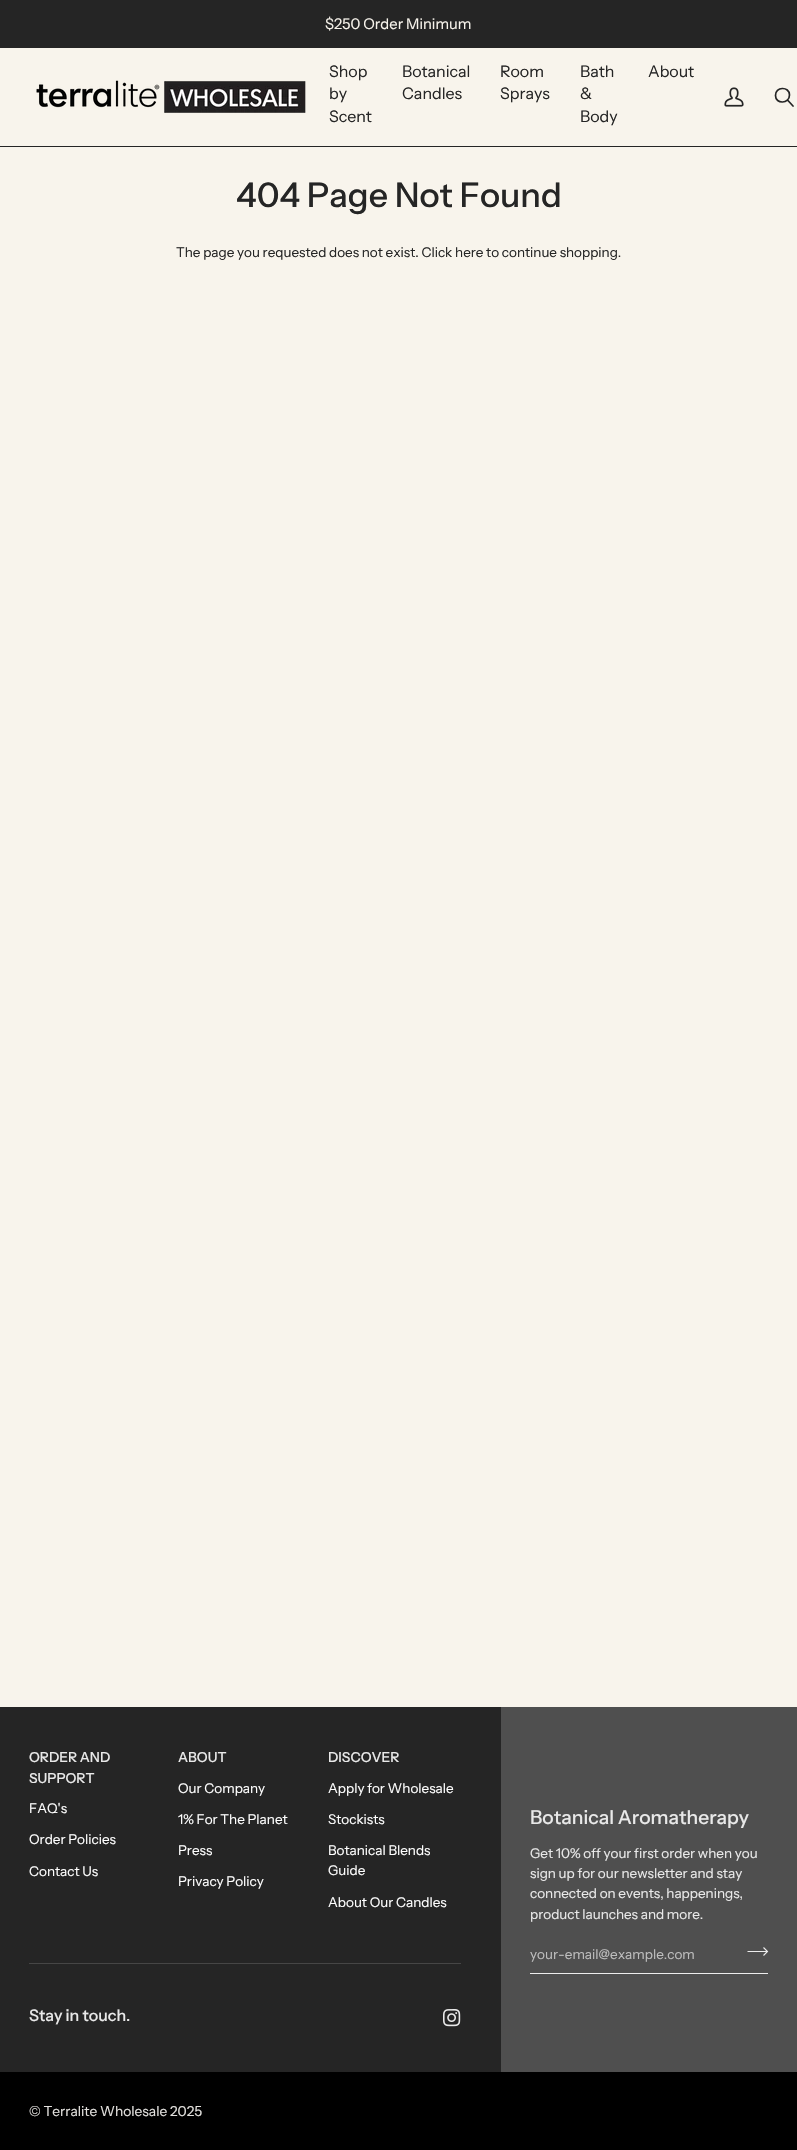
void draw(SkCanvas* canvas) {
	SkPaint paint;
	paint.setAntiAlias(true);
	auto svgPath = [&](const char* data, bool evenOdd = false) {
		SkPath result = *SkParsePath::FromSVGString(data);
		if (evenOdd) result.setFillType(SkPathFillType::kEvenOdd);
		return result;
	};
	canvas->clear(0xfff8f4ec);
	paint.setColor(0xff252525);
	canvas->drawRect(SkRect::MakeXYWH(0, 0, 797, 48), paint);
	SkFont f1(fontMgr->matchFamilyStyle("Instrument Sans", SkFontStyle::Normal()), 14.75);
	f1.setSubpixel(true);
	paint.setColor(0xfff8f4ec);
	canvas->drawString("$250 Order Minimum", 325, 29, f1, paint);
	paint.setColor(0xff252525);
	canvas->drawRect(SkRect::MakeXYWH(0, 146, 797, 1), paint);
	canvas->drawImageRect(SkImages::DeferredFromEncodedData(SkData::MakeFromFileName("img1.png")), SkRect::MakeXYWH(36, 80, 270, 33), SkSamplingOptions());
	SkFont f2(fontMgr->matchFamilyStyle("Instrument Sans", SkFontStyle::Normal()), 16);
	f2.setSubpixel(true);
	canvas->drawString("Shop", 329, 77, f2, paint);
	canvas->drawString("by", 329, 99, f2, paint);
	canvas->drawString("Scent", 329, 122, f2, paint);
	canvas->drawString("Botanical", 402, 77, f2, paint);
	canvas->drawString("Candles", 402, 99, f2, paint);
	canvas->drawString("Room", 500, 77, f2, paint);
	canvas->drawString("Sprays", 500, 99, f2, paint);
	canvas->drawString("Bath", 580, 77, f2, paint);
	canvas->drawString("&", 580, 99, f2, paint);
	canvas->drawString("Body", 580, 122, f2, paint);
	canvas->drawString("About", 648, 77, f2, paint);
	canvas->drawImageRect(SkImages::DeferredFromEncodedData(SkData::MakeFromFileName("img2.png")), SkRect::MakeXYWH(724, 87, 20, 20), SkSamplingOptions());
	paint.setStroke(true);
	paint.setStrokeWidth(1.7);
	paint.setStrokeCap(SkPaint::kRound_Cap);
	paint.setStrokeJoin(SkPaint::kRound_Join);
	canvas->drawPath(svgPath("M789.5 95C789.5 104 775.5 104.5 775.5 95.5C775 86.5 789.5 86 789.5 95ZM793 106L787.5 100Z"), paint);
	SkFont f3(fontMgr->matchFamilyStyle("Instrument Sans", SkFontStyle(500, SkFontStyle::kNormal_Width, SkFontStyle::kUpright_Slant)), 34);
	f3.setSubpixel(true);
	paint.setStroke(false);
	canvas->drawString("404 Page Not Found", 236, 207, f3, paint);
	SkFont f4(fontMgr->matchFamilyStyle("Instrument Sans", SkFontStyle::Normal()), 13.5);
	f4.setSubpixel(true);
	canvas->drawString("The page you requested does not exist. Click here to continue shopping.", 176, 257, f4, paint);
	canvas->drawRect(SkRect::MakeXYWH(0, 1707, 501, 365), paint);
	SkFont f5(fontMgr->matchFamilyStyle("Instrument Sans", SkFontStyle(500, SkFontStyle::kNormal_Width, SkFontStyle::kUpright_Slant)), 13.75);
	f5.setSubpixel(true);
	paint.setColor(0xffe9e9e9);
	canvas->drawString("ORDER AND", 29, 1762, f5, paint);
	canvas->drawString("SUPPORT", 29, 1783, f5, paint);
	paint.setColor(0xffffffff);
	canvas->drawString("FAQ's", 29, 1813, f4, paint);
	canvas->drawString("Order Policies", 29, 1844, f4, paint);
	canvas->drawString("Contact Us", 29, 1876, f4, paint);
	paint.setColor(0xffe9e9e9);
	canvas->drawString("ABOUT", 178, 1762, f5, paint);
	paint.setColor(0xffffffff);
	canvas->drawString("Our Company", 178, 1793, f4, paint);
	canvas->drawString("1% For The Planet", 178, 1824, f4, paint);
	canvas->drawString("Press", 178, 1855, f4, paint);
	canvas->drawString("Privacy Policy", 178, 1886, f4, paint);
	paint.setColor(0xffe9e9e9);
	canvas->drawString("DISCOVER", 328, 1762, f5, paint);
	paint.setColor(0xffffffff);
	canvas->drawString("Apply for Wholesale", 328, 1793, f4, paint);
	canvas->drawString("Stockists", 328, 1824, f4, paint);
	canvas->drawString("Botanical Blends", 328, 1855, f4, paint);
	canvas->drawString("Guide", 328, 1875, f4, paint);
	canvas->drawString("About Our Candles", 328, 1907, f4, paint);
	paint.setColor(0xff464646);
	canvas->drawRect(SkRect::MakeXYWH(29, 1963, 432, 1), paint);
	SkFont f6(fontMgr->matchFamilyStyle("Instrument Sans", SkFontStyle(500, SkFontStyle::kNormal_Width, SkFontStyle::kUpright_Slant)), 16);
	f6.setSubpixel(true);
	paint.setColor(0xffe9e9e9);
	canvas->drawString("Stay in touch.", 29, 2021, f6, paint);
	canvas->drawImageRect(SkImages::DeferredFromEncodedData(SkData::MakeFromFileName("img3.png")), SkRect::MakeXYWH(443, 2009, 18, 18), SkSamplingOptions());
	paint.setColor(0xff4f4f4f);
	canvas->drawRect(SkRect::MakeXYWH(501, 1707, 296, 365), paint);
	SkFont f7(fontMgr->matchFamilyStyle("Instrument Sans", SkFontStyle(500, SkFontStyle::kNormal_Width, SkFontStyle::kUpright_Slant)), 19.25);
	f7.setSubpixel(true);
	paint.setColor(0xffe9e9e9);
	canvas->drawString("Botanical Aromatherapy", 530, 1824, f7, paint);
	canvas->drawString("Get 10% off your first order when you", 530, 1858, f4, paint);
	canvas->drawString("sign up for our newsletter and stay", 530, 1878, f4, paint);
	canvas->drawString("connected on events, happenings,", 530, 1898, f4, paint);
	canvas->drawString("product launches and more.", 530, 1919, f4, paint);
	paint.setColor(0xffededed);
	canvas->drawRect(SkRect::MakeXYWH(530, 1973, 238, 1), paint);
	paint.setColor(0xffbebebe);
	canvas->drawString("your-email@example.com", 530, 1959, f4, paint);
	paint.setStroke(true);
	paint.setStrokeWidth(1.1);
	paint.setStrokeCap(SkPaint::kButt_Cap);
	paint.setStrokeJoin(SkPaint::kMiter_Join);
	paint.setColor(0xffededed);
	canvas->drawPath(svgPath("M763.5 1947.5L767.5 1951.5L763.5 1955.5M747.5 1951.5H767.5"), paint);
	paint.setStroke(false);
	paint.setColor(0xff000000);
	canvas->drawRect(SkRect::MakeXYWH(0, 2072, 797, 78), paint);
	SkFont f8(fontMgr->matchFamilyStyle("Instrument Sans", SkFontStyle::Normal()), 13.75);
	f8.setSubpixel(true);
	paint.setColor(0xffe3e1de);
	canvas->drawString("© Terralite Wholesale", 29, 2116, f8, paint);
	canvas->drawString("2025", 170, 2116, f8, paint);
}
